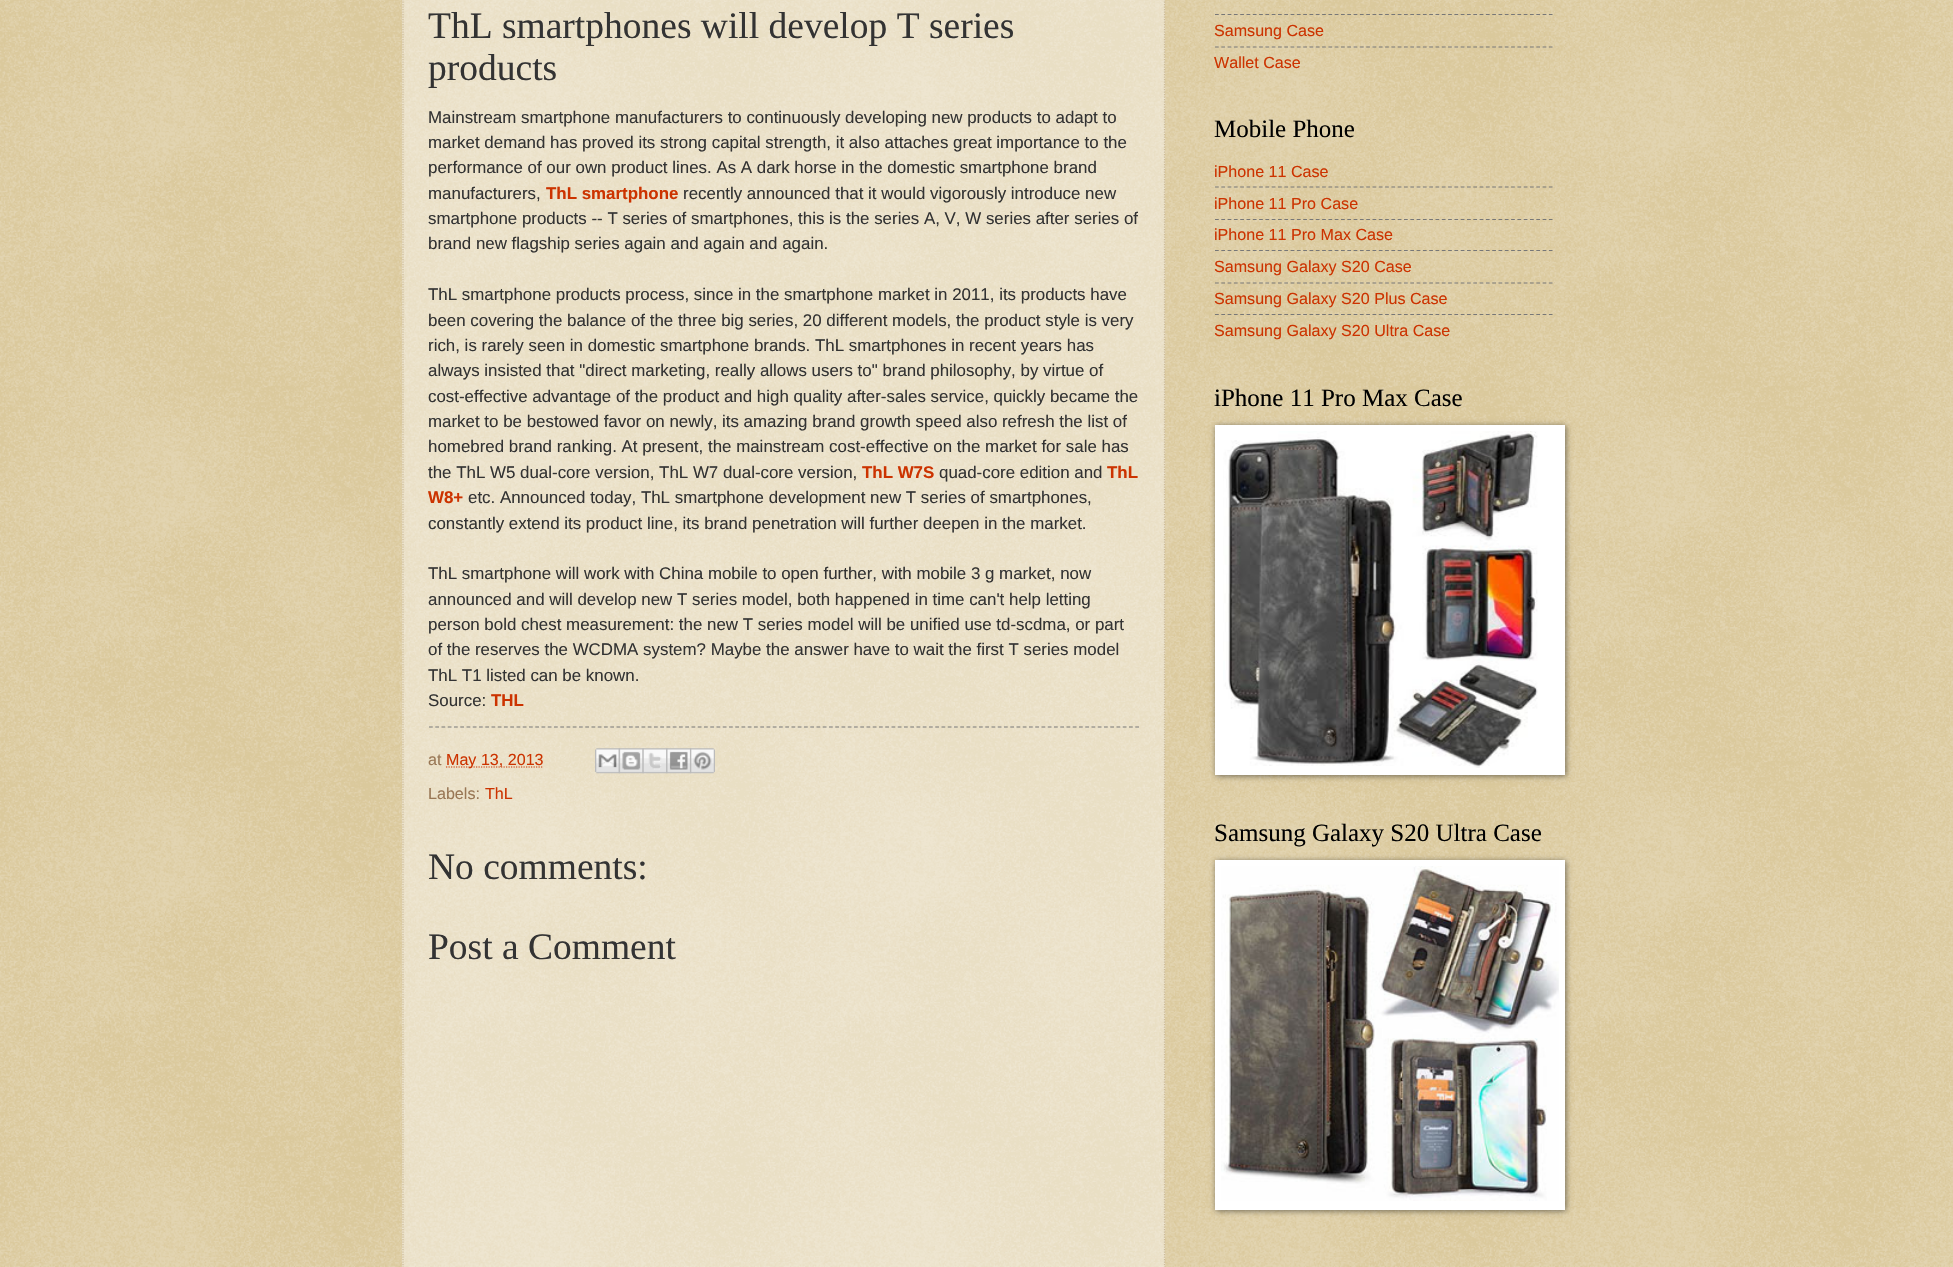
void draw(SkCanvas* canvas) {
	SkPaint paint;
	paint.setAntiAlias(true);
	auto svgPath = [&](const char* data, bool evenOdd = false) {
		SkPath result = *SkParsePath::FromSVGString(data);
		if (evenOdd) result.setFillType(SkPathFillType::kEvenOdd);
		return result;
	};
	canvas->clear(0xffc0a154);
	canvas->drawImageRect(SkImages::DeferredFromEncodedData(SkData::MakeFromFileName("img1.png")), SkRect::MakeXYWH(0, 0, 1953, 1267), SkSamplingOptions());
	paint.setColor(0x66ffffff);
	canvas->drawRect(SkRect::MakeXYWH(402, 0, 763, 1267), paint);
	paint.setStroke(true);
	paint.setStrokeWidth(1.2);
	paint.setColor(0xffccbb99);
	paint.setPathEffect(SkDashPathEffect::Make({{1.25f, 1.25f}}, 0));
	canvas->drawPath(svgPath("M1164.5-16V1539"), paint);
	paint.setPathEffect(nullptr);
	paint.setPathEffect(SkDashPathEffect::Make({{1.25f, 1.25f}}, 0));
	canvas->drawPath(svgPath("M403-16V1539"), paint);
	paint.setPathEffect(nullptr);
	SkFont f1(fontMgr->matchFamilyStyle("Liberation Serif", SkFontStyle::Normal()), 37.5);
	f1.setSubpixel(true);
	paint.setStroke(false);
	paint.setColor(0xff333333);
	canvas->drawString("ThL smartphones will develop T series", 428, 38, f1, paint);
	canvas->drawString("products", 428, 80, f1, paint);
	SkFont f2(fontMgr->matchFamilyStyle("Liberation Sans", SkFontStyle::Normal()), 16.9);
	f2.setSubpixel(true);
	canvas->drawString("Mainstream smartphone manufacturers to continuously developing new products to adapt to", 428, 123, f2, paint);
	canvas->drawString("market demand has proved its strong capital strength, it also attaches great importance to the", 428, 148, f2, paint);
	canvas->drawString("performance of our own product lines. As A dark horse in the domestic smartphone brand", 428, 173, f2, paint);
	canvas->drawString("manufacturers,", 428, 199, f2, paint);
	SkFont f3(fontMgr->matchFamilyStyle("Liberation Sans", SkFontStyle::Bold()), 16.9);
	f3.setSubpixel(true);
	paint.setColor(0xffcc3300);
	canvas->drawString("ThL smartphone", 546, 199, f3, paint);
	paint.setColor(0xff333333);
	canvas->drawString("recently announced that it would vigorously introduce new", 683, 199, f2, paint);
	canvas->drawString("smartphone products -- T series of smartphones, this is the series A, V, W series after series of", 428, 224, f2, paint);
	canvas->drawString("brand new flagship series again and again and again.", 428, 249, f2, paint);
	canvas->drawString("ThL smartphone products process, since in the smartphone market in 2011, its products have", 428, 300, f2, paint);
	canvas->drawString("been covering the balance of the three big series, 20 different models, the product style is very", 428, 326, f2, paint);
	canvas->drawString("rich, is rarely seen in domestic smartphone brands. ThL smartphones in recent years has", 428, 351, f2, paint);
	canvas->drawString("always insisted that \"direct marketing, really allows users to\" brand philosophy, by virtue of", 428, 376, f2, paint);
	canvas->drawString("cost-effective advantage of the product and high quality after-sales service, quickly became the", 428, 402, f2, paint);
	canvas->drawString("market to be bestowed favor on newly, its amazing brand growth speed also refresh the list of", 428, 427, f2, paint);
	canvas->drawString("homebred brand ranking. At present, the mainstream cost-effective on the market for sale has", 428, 452, f2, paint);
	canvas->drawString("the ThL W5 dual-core version, ThL W7 dual-core version,", 428, 478, f2, paint);
	paint.setColor(0xffcc3300);
	canvas->drawString("ThL W7S", 862, 478, f3, paint);
	paint.setColor(0xff333333);
	canvas->drawString("quad-core edition and", 939, 478, f2, paint);
	paint.setColor(0xffcc3300);
	canvas->drawString("ThL", 1107, 478, f3, paint);
	canvas->drawString("W8+", 428, 503, f3, paint);
	paint.setColor(0xff333333);
	canvas->drawString("etc. Announced today, ThL smartphone development new T series of smartphones,", 468, 503, f2, paint);
	canvas->drawString("constantly extend its product line, its brand penetration will further deepen in the market.", 428, 529, f2, paint);
	canvas->drawString("ThL smartphone will work with China mobile to open further, with mobile 3 g market, now", 428, 579, f2, paint);
	canvas->drawString("announced and will develop new T series model, both happened in time can't help letting", 428, 605, f2, paint);
	canvas->drawString("person bold chest measurement: the new T series model will be unified use td-scdma, or part", 428, 630, f2, paint);
	canvas->drawString("of the reserves the WCDMA system? Maybe the answer have to wait the first T series model", 428, 655, f2, paint);
	canvas->drawString("ThL T1 listed can be known.", 428, 681, f2, paint);
	canvas->drawString("Source:", 428, 706, f2, paint);
	paint.setColor(0xffcc3300);
	canvas->drawString("THL", 491, 706, f3, paint);
	paint.setStroke(true);
	paint.setColor(0xff777777);
	paint.setPathEffect(SkDashPathEffect::Make({{3.75f, 2.5f}}, 0));
	canvas->drawPath(svgPath("M429 727H1139"), paint);
	paint.setPathEffect(nullptr);
	SkFont f4(fontMgr->matchFamilyStyle("Liberation Sans", SkFontStyle::Normal()), 16.1);
	f4.setSubpixel(true);
	paint.setStroke(false);
	paint.setColor(0xff997755);
	canvas->drawString("at", 428, 765, f4, paint);
	paint.setStroke(true);
	paint.setColor(0xffcc3300);
	paint.setPathEffect(SkDashPathEffect::Make({{1.25f, 1.25f}}, 0));
	canvas->drawPath(svgPath("M446 767H543.5"), paint);
	paint.setPathEffect(nullptr);
	paint.setStroke(false);
	canvas->drawString("May 13, 2013", 446, 765, f4, paint);
	canvas->drawImageRect(SkImages::DeferredFromEncodedData(SkData::MakeFromFileName("img2.png")), SkRect::MakeXYWH(595, 748, 25, 26), SkSamplingOptions());
	canvas->drawImageRect(SkImages::DeferredFromEncodedData(SkData::MakeFromFileName("img3.png")), SkRect::MakeXYWH(618, 748, 26, 26), SkSamplingOptions());
	canvas->drawImageRect(SkImages::DeferredFromEncodedData(SkData::MakeFromFileName("img4.png")), SkRect::MakeXYWH(642, 748, 26, 26), SkSamplingOptions());
	canvas->drawImageRect(SkImages::DeferredFromEncodedData(SkData::MakeFromFileName("img5.png")), SkRect::MakeXYWH(666, 748, 26, 26), SkSamplingOptions());
	canvas->drawImageRect(SkImages::DeferredFromEncodedData(SkData::MakeFromFileName("img6.png")), SkRect::MakeXYWH(690, 748, 25, 26), SkSamplingOptions());
	paint.setColor(0xff997755);
	canvas->drawString("Labels:", 428, 799, f4, paint);
	paint.setColor(0xffcc3300);
	canvas->drawString("ThL", 485, 799, f4, paint);
	paint.setColor(0xff333333);
	canvas->drawString("No comments:", 428, 879, f1, paint);
	canvas->drawString("Post a Comment", 428, 959, f1, paint);
	paint.setStroke(true);
	paint.setColor(0xff777777);
	paint.setPathEffect(SkDashPathEffect::Make({{3.75f, 2.55f}}, 0));
	canvas->drawPath(svgPath("M1215 14.5H1552.5"), paint);
	paint.setPathEffect(nullptr);
	paint.setStroke(false);
	paint.setColor(0xffcc3300);
	canvas->drawString("Samsung Case", 1214, 36, f4, paint);
	paint.setStroke(true);
	paint.setColor(0xff777777);
	paint.setPathEffect(SkDashPathEffect::Make({{3.75f, 2.55f}}, 0));
	canvas->drawPath(svgPath("M1215 47H1552.5"), paint);
	paint.setPathEffect(nullptr);
	paint.setStroke(false);
	paint.setColor(0xffcc3300);
	canvas->drawString("Wallet Case", 1214, 68, f4, paint);
	SkFont f5(fontMgr->matchFamilyStyle("Liberation Serif", SkFontStyle::Normal()), 25);
	f5.setSubpixel(true);
	paint.setColor(0xff000000);
	canvas->drawString("Mobile Phone", 1214, 137, f5, paint);
	paint.setColor(0xffcc3300);
	canvas->drawString("iPhone 11 Case", 1214, 177, f4, paint);
	paint.setStroke(true);
	paint.setColor(0xff777777);
	paint.setPathEffect(SkDashPathEffect::Make({{3.75f, 2.55f}}, 0));
	canvas->drawPath(svgPath("M1215 187H1552.5"), paint);
	paint.setPathEffect(nullptr);
	paint.setStroke(false);
	paint.setColor(0xffcc3300);
	canvas->drawString("iPhone 11 Pro Case", 1214, 209, f4, paint);
	paint.setStroke(true);
	paint.setColor(0xff777777);
	paint.setPathEffect(SkDashPathEffect::Make({{3.75f, 2.55f}}, 0));
	canvas->drawPath(svgPath("M1215 219.5H1552.5"), paint);
	paint.setPathEffect(nullptr);
	paint.setStroke(false);
	paint.setColor(0xffcc3300);
	canvas->drawString("iPhone 11 Pro Max Case", 1214, 240, f4, paint);
	paint.setStroke(true);
	paint.setColor(0xff777777);
	paint.setPathEffect(SkDashPathEffect::Make({{3.75f, 2.55f}}, 0));
	canvas->drawPath(svgPath("M1215 250.5H1552.5"), paint);
	paint.setPathEffect(nullptr);
	paint.setStroke(false);
	paint.setColor(0xffcc3300);
	canvas->drawString("Samsung Galaxy S20 Case", 1214, 272, f4, paint);
	paint.setStroke(true);
	paint.setColor(0xff777777);
	paint.setPathEffect(SkDashPathEffect::Make({{3.75f, 2.55f}}, 0));
	canvas->drawPath(svgPath("M1215 283H1552.5"), paint);
	paint.setPathEffect(nullptr);
	paint.setStroke(false);
	paint.setColor(0xffcc3300);
	canvas->drawString("Samsung Galaxy S20 Plus Case", 1214, 304, f4, paint);
	paint.setStroke(true);
	paint.setColor(0xff777777);
	paint.setPathEffect(SkDashPathEffect::Make({{3.75f, 2.55f}}, 0));
	canvas->drawPath(svgPath("M1215 314.5H1552.5"), paint);
	paint.setPathEffect(nullptr);
	paint.setStroke(false);
	paint.setColor(0xffcc3300);
	canvas->drawString("Samsung Galaxy S20 Ultra Case", 1214, 336, f4, paint);
	paint.setColor(0xff000000);
	canvas->drawString("iPhone 11 Pro Max Case", 1214, 406, f5, paint);
	paint.setColor(0x80000000);
	paint.setMaskFilter(SkMaskFilter::MakeBlur(kNormal_SkBlurStyle, 3));
	canvas->drawRect(SkRect::MakeXYWH(1216, 426, 350, 350), paint);
	paint.setMaskFilter(nullptr);
	paint.setColor(0xffffffff);
	canvas->drawRect(SkRect::MakeXYWH(1215, 425, 350, 350), paint);
	canvas->drawImageRect(SkImages::DeferredFromEncodedData(SkData::MakeFromFileName("img7.png")), SkRect::MakeXYWH(1223, 431, 315, 337), SkSamplingOptions());
	paint.setColor(0xff000000);
	canvas->drawString("Samsung Galaxy S20 Ultra Case", 1214, 841, f5, paint);
	paint.setColor(0x80000000);
	paint.setMaskFilter(SkMaskFilter::MakeBlur(kNormal_SkBlurStyle, 3));
	canvas->drawRect(SkRect::MakeXYWH(1216, 861, 350, 350), paint);
	paint.setMaskFilter(nullptr);
	paint.setColor(0xffffffff);
	canvas->drawRect(SkRect::MakeXYWH(1215, 860, 350, 350), paint);
	canvas->drawImageRect(SkImages::DeferredFromEncodedData(SkData::MakeFromFileName("img8.png")), SkRect::MakeXYWH(1221, 866, 338, 335), SkSamplingOptions());
}
